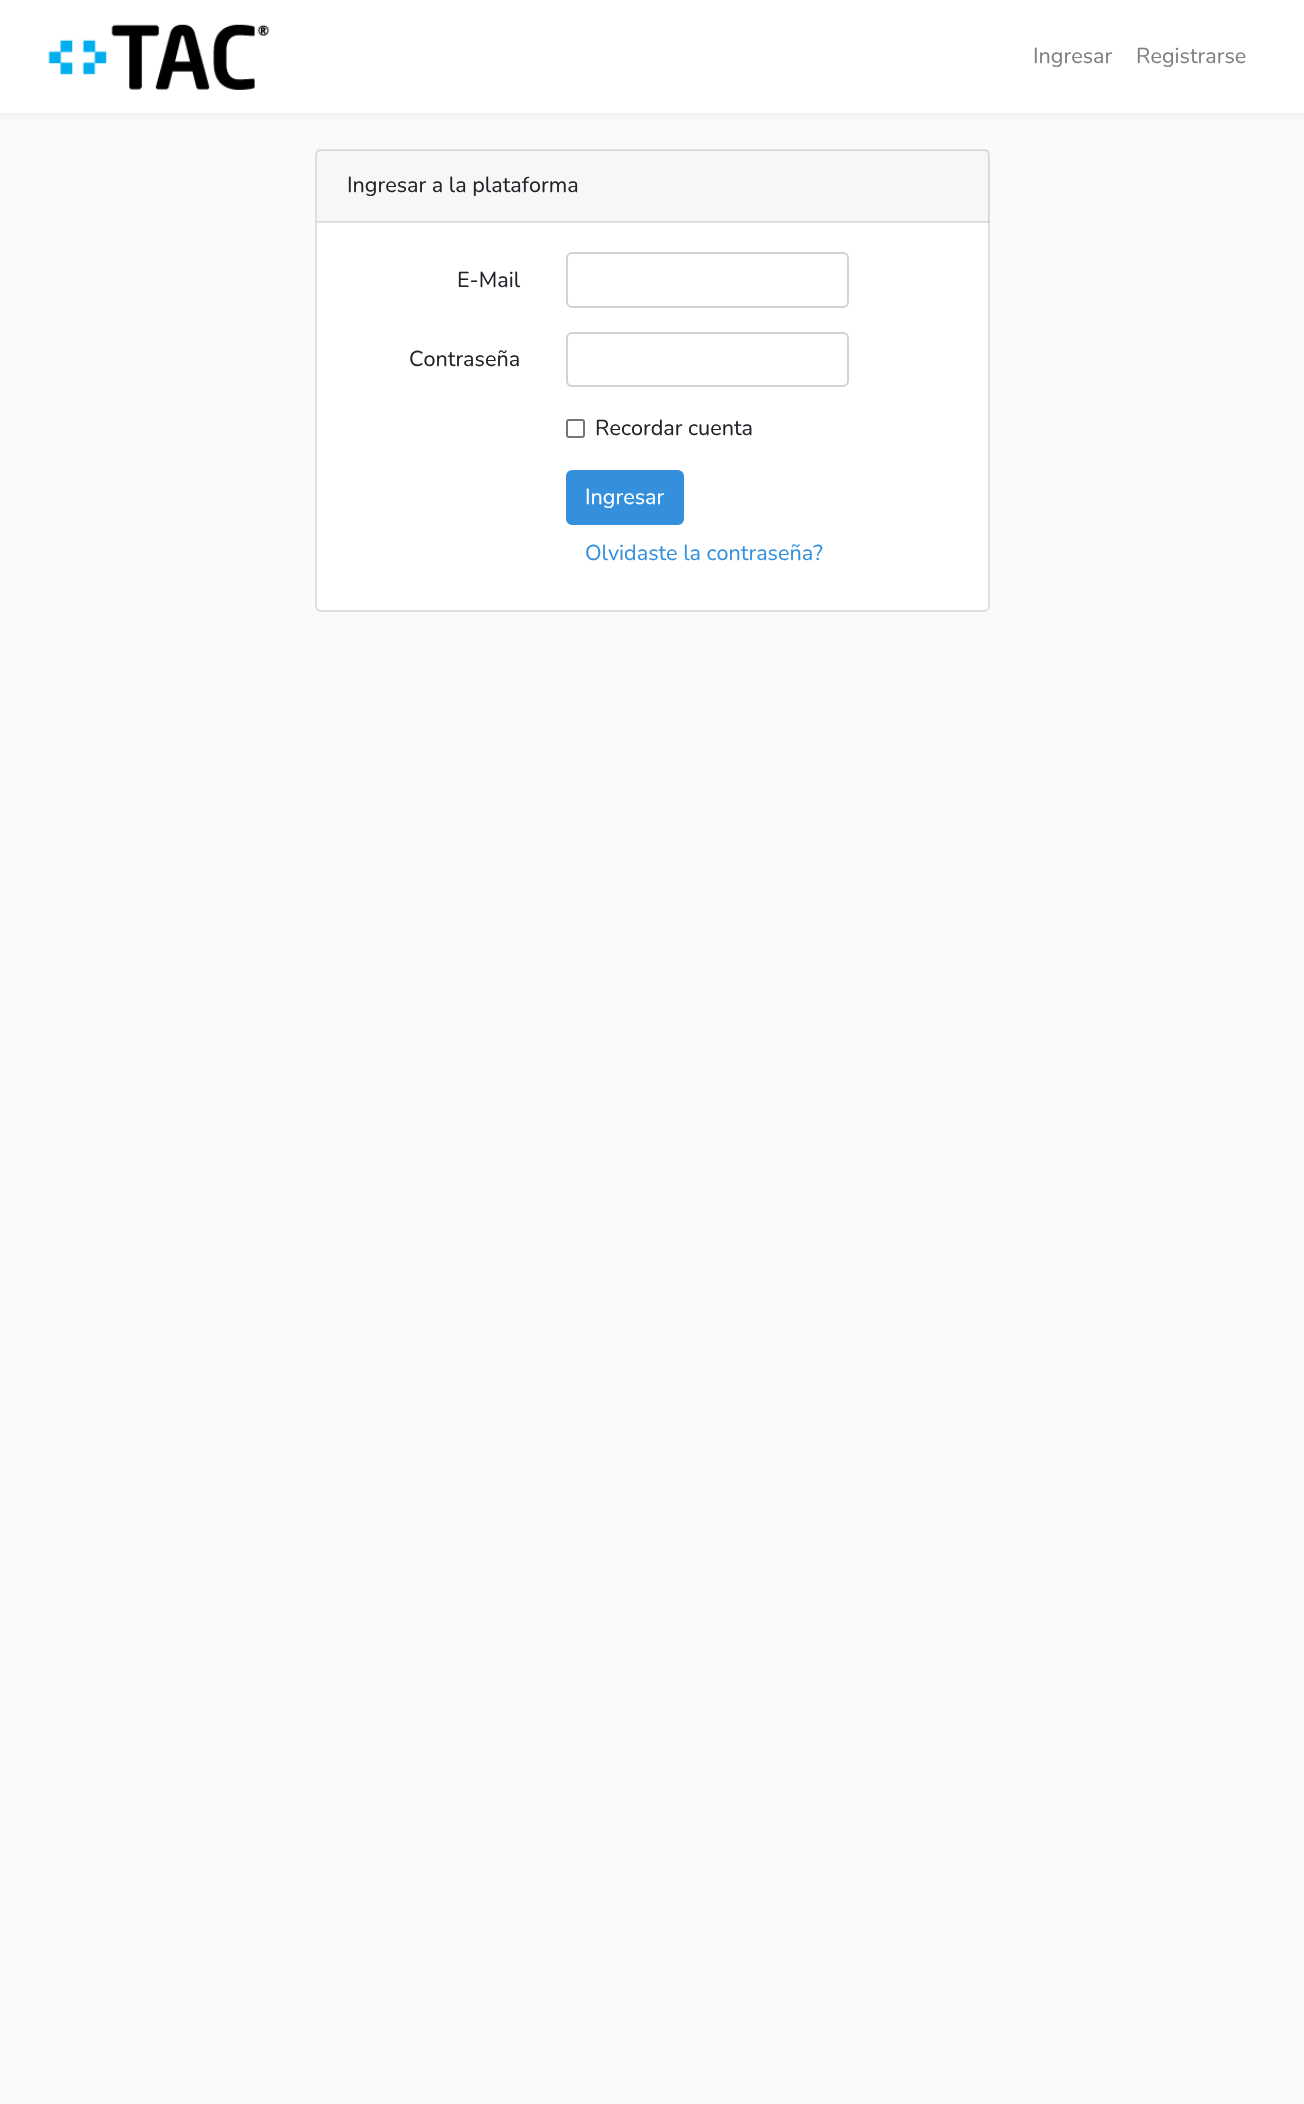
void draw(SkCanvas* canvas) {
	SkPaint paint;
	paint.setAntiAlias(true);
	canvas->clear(0xfff8fafc);
	paint.setColor(0x0a000000);
	paint.setMaskFilter(SkMaskFilter::MakeBlur(kNormal_SkBlurStyle, 3));
	canvas->drawRect(SkRect::MakeXYWH(0, 3, 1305, 113), paint);
	paint.setMaskFilter(nullptr);
	paint.setColor(0xffffffff);
	canvas->drawRect(SkRect::MakeXYWH(0, 0, 1304, 113), paint);
	canvas->drawImageRect(SkImages::DeferredFromEncodedData(SkData::MakeFromFileName("img1.png")), SkRect::MakeXYWH(48, 24, 222, 66), SkSamplingOptions());
	SkFont f1(fontMgr->matchFamilyStyle("Nunito", SkFontStyle(200, SkFontStyle::kNormal_Width, SkFontStyle::kUpright_Slant)), 21.6);
	f1.setSubpixel(true);
	paint.setColor(0xff808080);
	canvas->drawString("Ingresar", 1033, 63, f1, paint);
	canvas->drawString("Registrarse", 1136, 63, f1, paint);
	paint.setColor(0xffffffff);
	canvas->drawRoundRect(SkRect::MakeXYWH(316, 150, 673, 461), 5, 5, paint);
	paint.setStroke(true);
	paint.setStrokeWidth(2);
	paint.setColor(0xffdfdfdf);
	canvas->drawRoundRect(SkRect::MakeXYWH(316, 150, 673, 461), 5, 5, paint);
	paint.setStroke(false);
	paint.setColor(0x08000000);
	canvas->drawRect(SkRect::MakeXYWH(317, 150, 672, 72), paint);
	paint.setColor(0x1f000000);
	canvas->drawRect(SkRect::MakeXYWH(317, 221, 672, 2), paint);
	paint.setColor(0xff212529);
	canvas->drawString("Ingresar a la plataforma", 347, 192, f1, paint);
	canvas->drawString("E-Mail", 457, 287, f1, paint);
	paint.setStroke(true);
	paint.setColor(0xffced4da);
	canvas->drawRoundRect(SkRect::MakeXYWH(567, 253, 281, 54), 5, 5, paint);
	paint.setStroke(false);
	paint.setColor(0xff212529);
	canvas->drawString("Contraseña", 409, 366, f1, paint);
	paint.setStroke(true);
	paint.setColor(0xffced4da);
	canvas->drawRoundRect(SkRect::MakeXYWH(567, 333, 281, 53), 5, 5, paint);
	paint.setColor(0xff767676);
	canvas->drawRoundRect(SkRect::MakeXYWH(567, 420, 17, 17), 2, 2, paint);
	paint.setStroke(false);
	paint.setColor(0xff212529);
	canvas->drawString("Recordar cuenta", 595, 435, f1, paint);
	paint.setColor(0xff3490dc);
	canvas->drawRoundRect(SkRect::MakeXYWH(567, 471, 116, 53), 5, 5, paint);
	paint.setStroke(true);
	canvas->drawRoundRect(SkRect::MakeXYWH(567, 471, 116, 53), 5, 5, paint);
	paint.setStroke(false);
	paint.setColor(0xffffffff);
	canvas->drawString("Ingresar", 585, 504, f1, paint);
	paint.setColor(0xff3490dc);
	canvas->drawString("Olvidaste la contraseña?", 585, 560, f1, paint);
}
